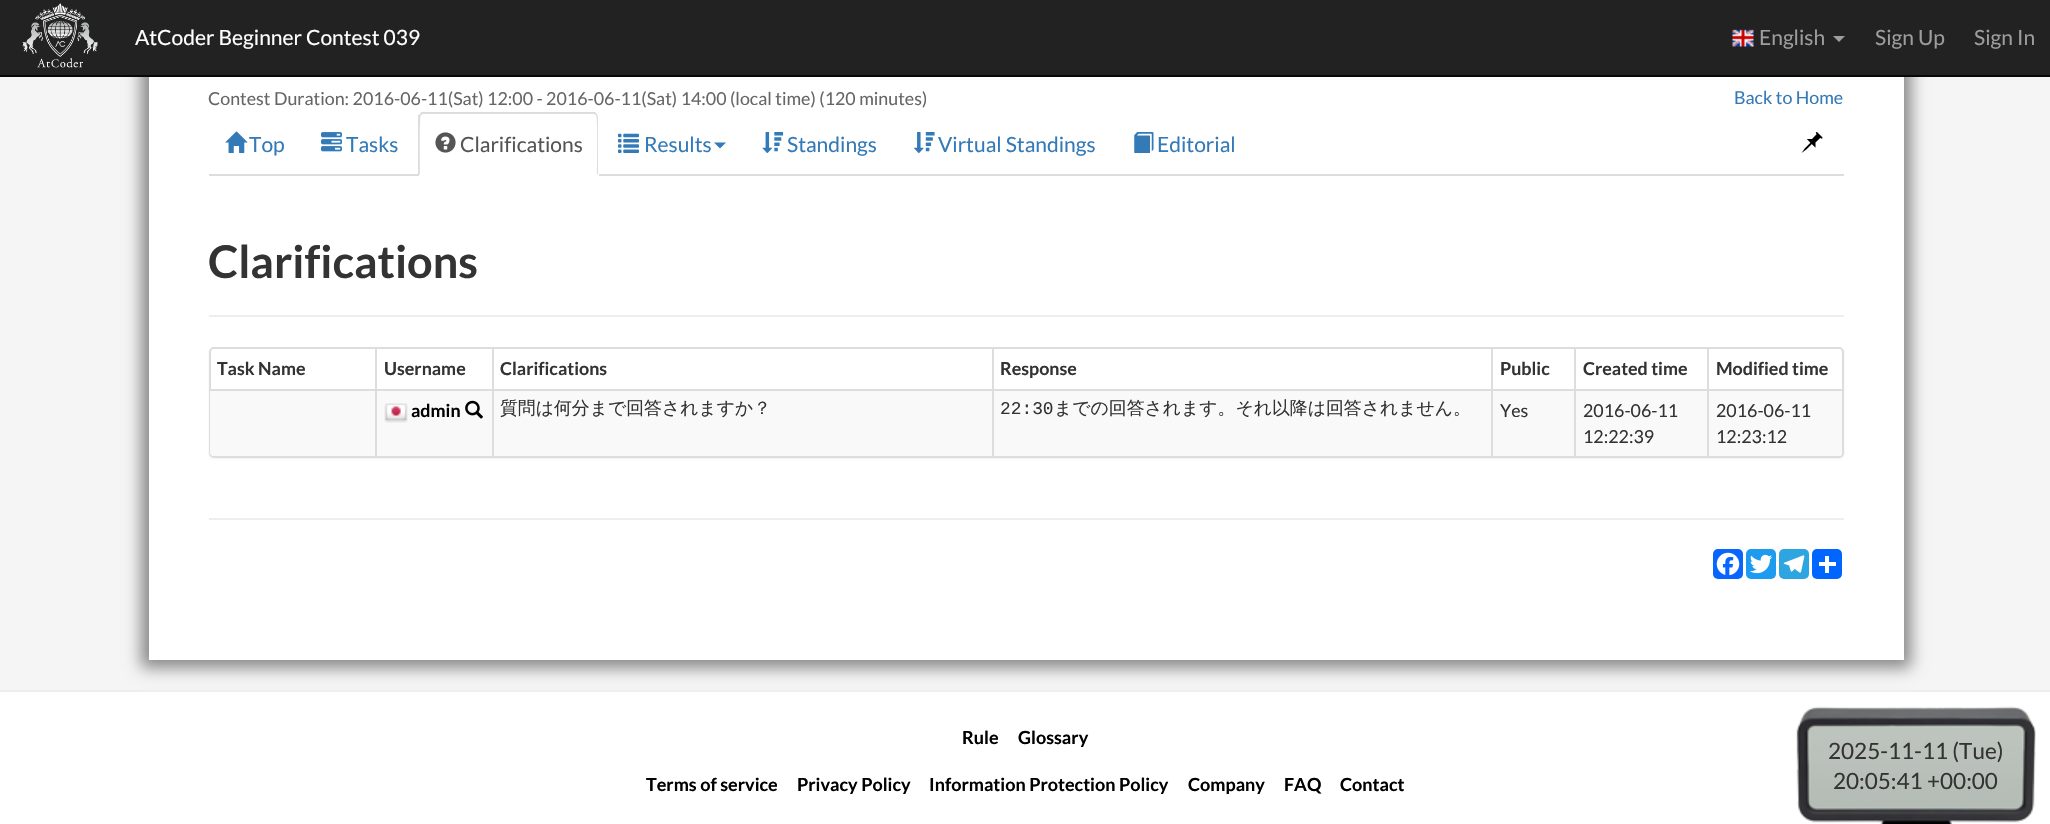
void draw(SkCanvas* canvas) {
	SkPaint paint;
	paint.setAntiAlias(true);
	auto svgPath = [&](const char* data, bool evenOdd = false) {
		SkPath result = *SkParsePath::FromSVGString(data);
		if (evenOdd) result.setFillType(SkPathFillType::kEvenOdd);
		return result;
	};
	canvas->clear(0xffffffff);
	paint.setColor(0xfff5f5f5);
	canvas->drawRect(SkRect::MakeXYWH(0, 77, 2050, 613), paint);
	paint.setColor(0xff888888);
	paint.setMaskFilter(SkMaskFilter::MakeBlur(kNormal_SkBlurStyle, 7.5));
	canvas->drawRect(SkRect::MakeXYWH(141, -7, 1770, 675), paint);
	paint.setMaskFilter(nullptr);
	paint.setColor(0xff222222);
	canvas->drawRect(SkRect::MakeXYWH(0, 0, 2050, 75), paint);
	paint.setColor(0xff080808);
	canvas->drawRect(SkRect::MakeXYWH(0, 75, 2050, 2), paint);
	canvas->drawImageRect(SkImages::DeferredFromEncodedData(SkData::MakeFromFileName("img1.png")), SkRect::MakeXYWH(22, 3, 76, 65), SkSamplingOptions());
	SkFont f1(fontMgr->matchFamilyStyle("Lato", SkFontStyle::Normal()), 21);
	f1.setSubpixel(true);
	paint.setColor(0xffffffff);
	canvas->drawString("AtCoder Beginner Contest 039", 135, 45, f1, paint);
	canvas->drawImageRect(SkImages::DeferredFromEncodedData(SkData::MakeFromFileName("img2.png")), SkRect::MakeXYWH(1732, 29, 22, 18), SkSamplingOptions());
	paint.setColor(0xff9d9d9d);
	canvas->drawString("English", 1759, 45, f1, paint);
	canvas->drawPath(svgPath("M1833 36H1845L1839 42Z"), paint);
	canvas->drawString("Sign Up", 1875, 45, f1, paint);
	canvas->drawString("Sign In", 1974, 45, f1, paint);
	paint.setColor(0xffffffff);
	canvas->drawRect(SkRect::MakeXYWH(149, 77, 1755, 583), paint);
	SkFont f2(fontMgr->matchFamilyStyle("Lato", SkFontStyle::Normal()), 17.85);
	f2.setSubpixel(true);
	paint.setColor(0xff666666);
	canvas->drawString("Contest Duration: 2016-06-11(Sat) 12:00 - 2016-06-11(Sat) 14:00 (local time) (120 minutes)", 208, 105, f2, paint);
	paint.setColor(0xff337ab7);
	canvas->drawString("Back to Home", 1734, 104, f2, paint);
	paint.setColor(0xffdddddd);
	canvas->drawRect(SkRect::MakeXYWH(209, 174, 1635, 2), paint);
	canvas->drawImageRect(SkImages::DeferredFromEncodedData(SkData::MakeFromFileName("img3.png")), SkRect::MakeXYWH(225, 131, 23, 22), SkSamplingOptions());
	paint.setColor(0xff337ab7);
	canvas->drawString("Top", 249, 152, f1, paint);
	canvas->drawImageRect(SkImages::DeferredFromEncodedData(SkData::MakeFromFileName("img4.png")), SkRect::MakeXYWH(321, 132, 21, 20), SkSamplingOptions());
	canvas->drawString("Tasks", 346, 152, f1, paint);
	paint.setColor(0xffffffff);
	canvas->drawPath(svgPath("M424 113H594C597 113 599 115 599 118V176H419V118C419 115 421 113 424 113Z"), paint);
	paint.setColor(0xffdddddd);
	canvas->drawPath(svgPath("M423 114L421 115L420 114L421 112H595L597 114L596 115L594 114Z"), paint);
	canvas->drawPath(svgPath("M597 114L598 117V175L597 174C597 167 598 117 596 115Z"), paint);
	canvas->drawPath(svgPath("M418 176V115L420 114L421 115C419 117 420 167 420 174Z"), paint);
	canvas->drawImageRect(SkImages::DeferredFromEncodedData(SkData::MakeFromFileName("img5.png")), SkRect::MakeXYWH(435, 132, 21, 21), SkSamplingOptions());
	paint.setColor(0xff555555);
	canvas->drawString("Clarifications", 460, 152, f1, paint);
	canvas->drawImageRect(SkImages::DeferredFromEncodedData(SkData::MakeFromFileName("img6.png")), SkRect::MakeXYWH(618, 133, 21, 20), SkSamplingOptions());
	paint.setColor(0xff337ab7);
	canvas->drawString("Results", 644, 152, f1, paint);
	canvas->drawPath(svgPath("M714 142.5H726L720 148.5Z"), paint);
	canvas->drawImageRect(SkImages::DeferredFromEncodedData(SkData::MakeFromFileName("img7.png")), SkRect::MakeXYWH(762, 132, 22, 21), SkSamplingOptions());
	canvas->drawString("Standings", 787, 152, f1, paint);
	canvas->drawImageRect(SkImages::DeferredFromEncodedData(SkData::MakeFromFileName("img8.png")), SkRect::MakeXYWH(914, 132, 21, 21), SkSamplingOptions());
	canvas->drawString("Virtual Standings", 938, 152, f1, paint);
	canvas->drawImageRect(SkImages::DeferredFromEncodedData(SkData::MakeFromFileName("img9.png")), SkRect::MakeXYWH(1134, 132, 20, 21), SkSamplingOptions());
	canvas->drawString("Editorial", 1157, 152, f1, paint);
	canvas->drawImageRect(SkImages::DeferredFromEncodedData(SkData::MakeFromFileName("img10.png")), SkRect::MakeXYWH(1801, 132, 22, 21), SkSamplingOptions());
	SkFont f3(fontMgr->matchFamilyStyle("Lato", SkFontStyle::Bold()), 45);
	f3.setSubpixel(true);
	paint.setColor(0xff333333);
	canvas->drawString("Clarifications", 208, 278, f3, paint);
	paint.setColor(0xffeeeeee);
	canvas->drawRect(SkRect::MakeXYWH(209, 315, 1635, 2), paint);
	paint.setColor(0x0d000000);
	paint.setMaskFilter(SkMaskFilter::MakeBlur(kNormal_SkBlurStyle, 1));
	canvas->drawRoundRect(SkRect::MakeXYWH(209, 348, 1635, 111), 5, 5, paint);
	paint.setMaskFilter(nullptr);
	paint.setColor(0xffffffff);
	canvas->drawRoundRect(SkRect::MakeXYWH(210, 348, 1633, 109), 4, 4, paint);
	paint.setStroke(true);
	paint.setStrokeWidth(2);
	paint.setColor(0xffdddddd);
	canvas->drawRoundRect(SkRect::MakeXYWH(210, 348, 1633, 109), 4, 4, paint);
	SkFont f4(fontMgr->matchFamilyStyle("Lato", SkFontStyle::Bold()), 17.85);
	f4.setSubpixel(true);
	paint.setStroke(false);
	paint.setColor(0xff333333);
	canvas->drawString("Task Name", 217, 375, f4, paint);
	paint.setColor(0xfff9f9f9);
	canvas->drawPath(svgPath("M210 390H1842V453C1842 454.5 1840.5 456 1839 456H213C211.5 456 210 454.5 210 453Z"), paint);
	paint.setColor(0xffdddddd);
	canvas->drawRect(SkRect::MakeXYWH(1707, 389, 135, 2), paint);
	canvas->drawRect(SkRect::MakeXYWH(1707, 389, 2, 67), paint);
	canvas->drawRect(SkRect::MakeXYWH(1574, 389, 135, 2), paint);
	canvas->drawRect(SkRect::MakeXYWH(1574, 389, 2, 67), paint);
	canvas->drawRect(SkRect::MakeXYWH(1491, 389, 84, 2), paint);
	canvas->drawRect(SkRect::MakeXYWH(1491, 389, 2, 67), paint);
	canvas->drawRect(SkRect::MakeXYWH(992, 389, 501, 2), paint);
	canvas->drawRect(SkRect::MakeXYWH(992, 389, 2, 67), paint);
	canvas->drawRect(SkRect::MakeXYWH(492, 389, 501, 2), paint);
	canvas->drawRect(SkRect::MakeXYWH(492, 389, 2, 67), paint);
	canvas->drawRect(SkRect::MakeXYWH(375, 389, 119, 2), paint);
	canvas->drawRect(SkRect::MakeXYWH(375, 389, 2, 67), paint);
	canvas->drawRect(SkRect::MakeXYWH(210, 389, 167, 2), paint);
	canvas->drawRect(SkRect::MakeXYWH(375, 348, 2, 42), paint);
	paint.setColor(0xff333333);
	canvas->drawString("Username", 384, 375, f4, paint);
	paint.setColor(0xffdddddd);
	canvas->drawRect(SkRect::MakeXYWH(492, 348, 2, 42), paint);
	paint.setColor(0xff333333);
	canvas->drawString("Clarifications", 500, 375, f4, paint);
	paint.setColor(0xffdddddd);
	canvas->drawRect(SkRect::MakeXYWH(992, 348, 2, 42), paint);
	paint.setColor(0xff333333);
	canvas->drawString("Response", 1000, 375, f4, paint);
	paint.setColor(0xffdddddd);
	canvas->drawRect(SkRect::MakeXYWH(1491, 348, 2, 42), paint);
	paint.setColor(0xff333333);
	canvas->drawString("Public", 1500, 375, f4, paint);
	paint.setColor(0xffdddddd);
	canvas->drawRect(SkRect::MakeXYWH(1574, 348, 2, 42), paint);
	paint.setColor(0xff333333);
	canvas->drawString("Created time", 1583, 375, f4, paint);
	paint.setColor(0xffdddddd);
	canvas->drawRect(SkRect::MakeXYWH(1707, 348, 2, 42), paint);
	paint.setColor(0xff333333);
	canvas->drawString("Modified time", 1716, 375, f4, paint);
	canvas->drawImageRect(SkImages::DeferredFromEncodedData(SkData::MakeFromFileName("img11.png")), SkRect::MakeXYWH(384, 403, 24, 20), SkSamplingOptions());
	paint.setColor(0xff000000);
	canvas->drawString("admin", 411, 417, f4, paint);
	canvas->drawImageRect(SkImages::DeferredFromEncodedData(SkData::MakeFromFileName("img12.png")), SkRect::MakeXYWH(465, 400, 18, 19), SkSamplingOptions());
	SkFont f5(fontMgr->matchFamilyStyle("WenQuanYi Zen Hei", SkFontStyle(500, SkFontStyle::kNormal_Width, SkFontStyle::kUpright_Slant)), 17.85);
	f5.setSubpixel(true);
	paint.setColor(0xff333333);
	canvas->drawString("質問は何分まで回答されますか？", 500, 414, f5, paint);
	SkFont f6(fontMgr->matchFamilyStyle("Liberation Mono", SkFontStyle::Normal()), 17.85);
	f6.setSubpixel(true);
	canvas->drawString("22:30", 1000, 414, f6, paint);
	canvas->drawString("までの回答されます。それ以降は回答されません。", 1054, 414, f5, paint);
	canvas->drawString("Yes", 1500, 417, f2, paint);
	canvas->drawString("2016-06-11", 1583, 417, f2, paint);
	canvas->drawString("12:22:39", 1583, 443, f2, paint);
	canvas->drawString("2016-06-11", 1716, 417, f2, paint);
	canvas->drawString("12:23:12", 1716, 443, f2, paint);
	paint.setColor(0xffeeeeee);
	canvas->drawRect(SkRect::MakeXYWH(209, 518, 1635, 2), paint);
	paint.setColor(0xff0866ff);
	canvas->drawRoundRect(SkRect::MakeXYWH(1713, 549, 30, 30), 5, 5, paint);
	canvas->drawImageRect(SkImages::DeferredFromEncodedData(SkData::MakeFromFileName("img13.png")), SkRect::MakeXYWH(1716, 552, 24, 24), SkSamplingOptions());
	paint.setColor(0xff1d9bf0);
	canvas->drawRoundRect(SkRect::MakeXYWH(1746, 549, 30, 30), 5, 5, paint);
	canvas->drawImageRect(SkImages::DeferredFromEncodedData(SkData::MakeFromFileName("img14.png")), SkRect::MakeXYWH(1750, 554, 23, 20), SkSamplingOptions());
	paint.setColor(0xff2ca5e0);
	canvas->drawRoundRect(SkRect::MakeXYWH(1779, 549, 30, 30), 5, 5, paint);
	canvas->drawImageRect(SkImages::DeferredFromEncodedData(SkData::MakeFromFileName("img15.png")), SkRect::MakeXYWH(1783, 555, 22, 18), SkSamplingOptions());
	paint.setColor(0xff0166ff);
	canvas->drawRoundRect(SkRect::MakeXYWH(1812, 549, 30, 30), 5, 5, paint);
	paint.setColor(0xffffffff);
	canvas->drawRect(SkRect::MakeXYWH(1825, 556, 4, 17), paint);
	canvas->drawRect(SkRect::MakeXYWH(1819, 562, 17, 4), paint);
	paint.setColor(0xffeeeeee);
	canvas->drawRect(SkRect::MakeXYWH(0, 690, 2050, 2), paint);
	SkFont f7(fontMgr->matchFamilyStyle("Lato", SkFontStyle::Bold()), 18);
	f7.setSubpixel(true);
	paint.setColor(0xff000000);
	canvas->drawString("Rule", 962, 744, f7, paint);
	canvas->drawString("Glossary", 1018, 744, f7, paint);
	canvas->drawString("Terms of service", 646, 791, f7, paint);
	canvas->drawString("Privacy Policy", 797, 791, f7, paint);
	canvas->drawString("Information Protection Policy", 929, 791, f7, paint);
	canvas->drawString("Company", 1188, 791, f7, paint);
	canvas->drawString("FAQ", 1284, 791, f7, paint);
	canvas->drawString("Contact", 1340, 791, f7, paint);
	canvas->drawImageRect(SkImages::DeferredFromEncodedData(SkData::MakeFromFileName("img16.png")), SkRect::MakeXYWH(1796, 706, 240, 118), SkSamplingOptions());
	SkFont f8(fontMgr->matchFamilyStyle("Lato", SkFontStyle::Normal()), 22.5);
	f8.setSubpixel(true);
	paint.setColor(0xff333333);
	canvas->drawString("2025-11-11 (Tue)", 1828, 759, f8, paint);
	canvas->drawString("20:05:41 +00:00", 1833, 789, f8, paint);
}
